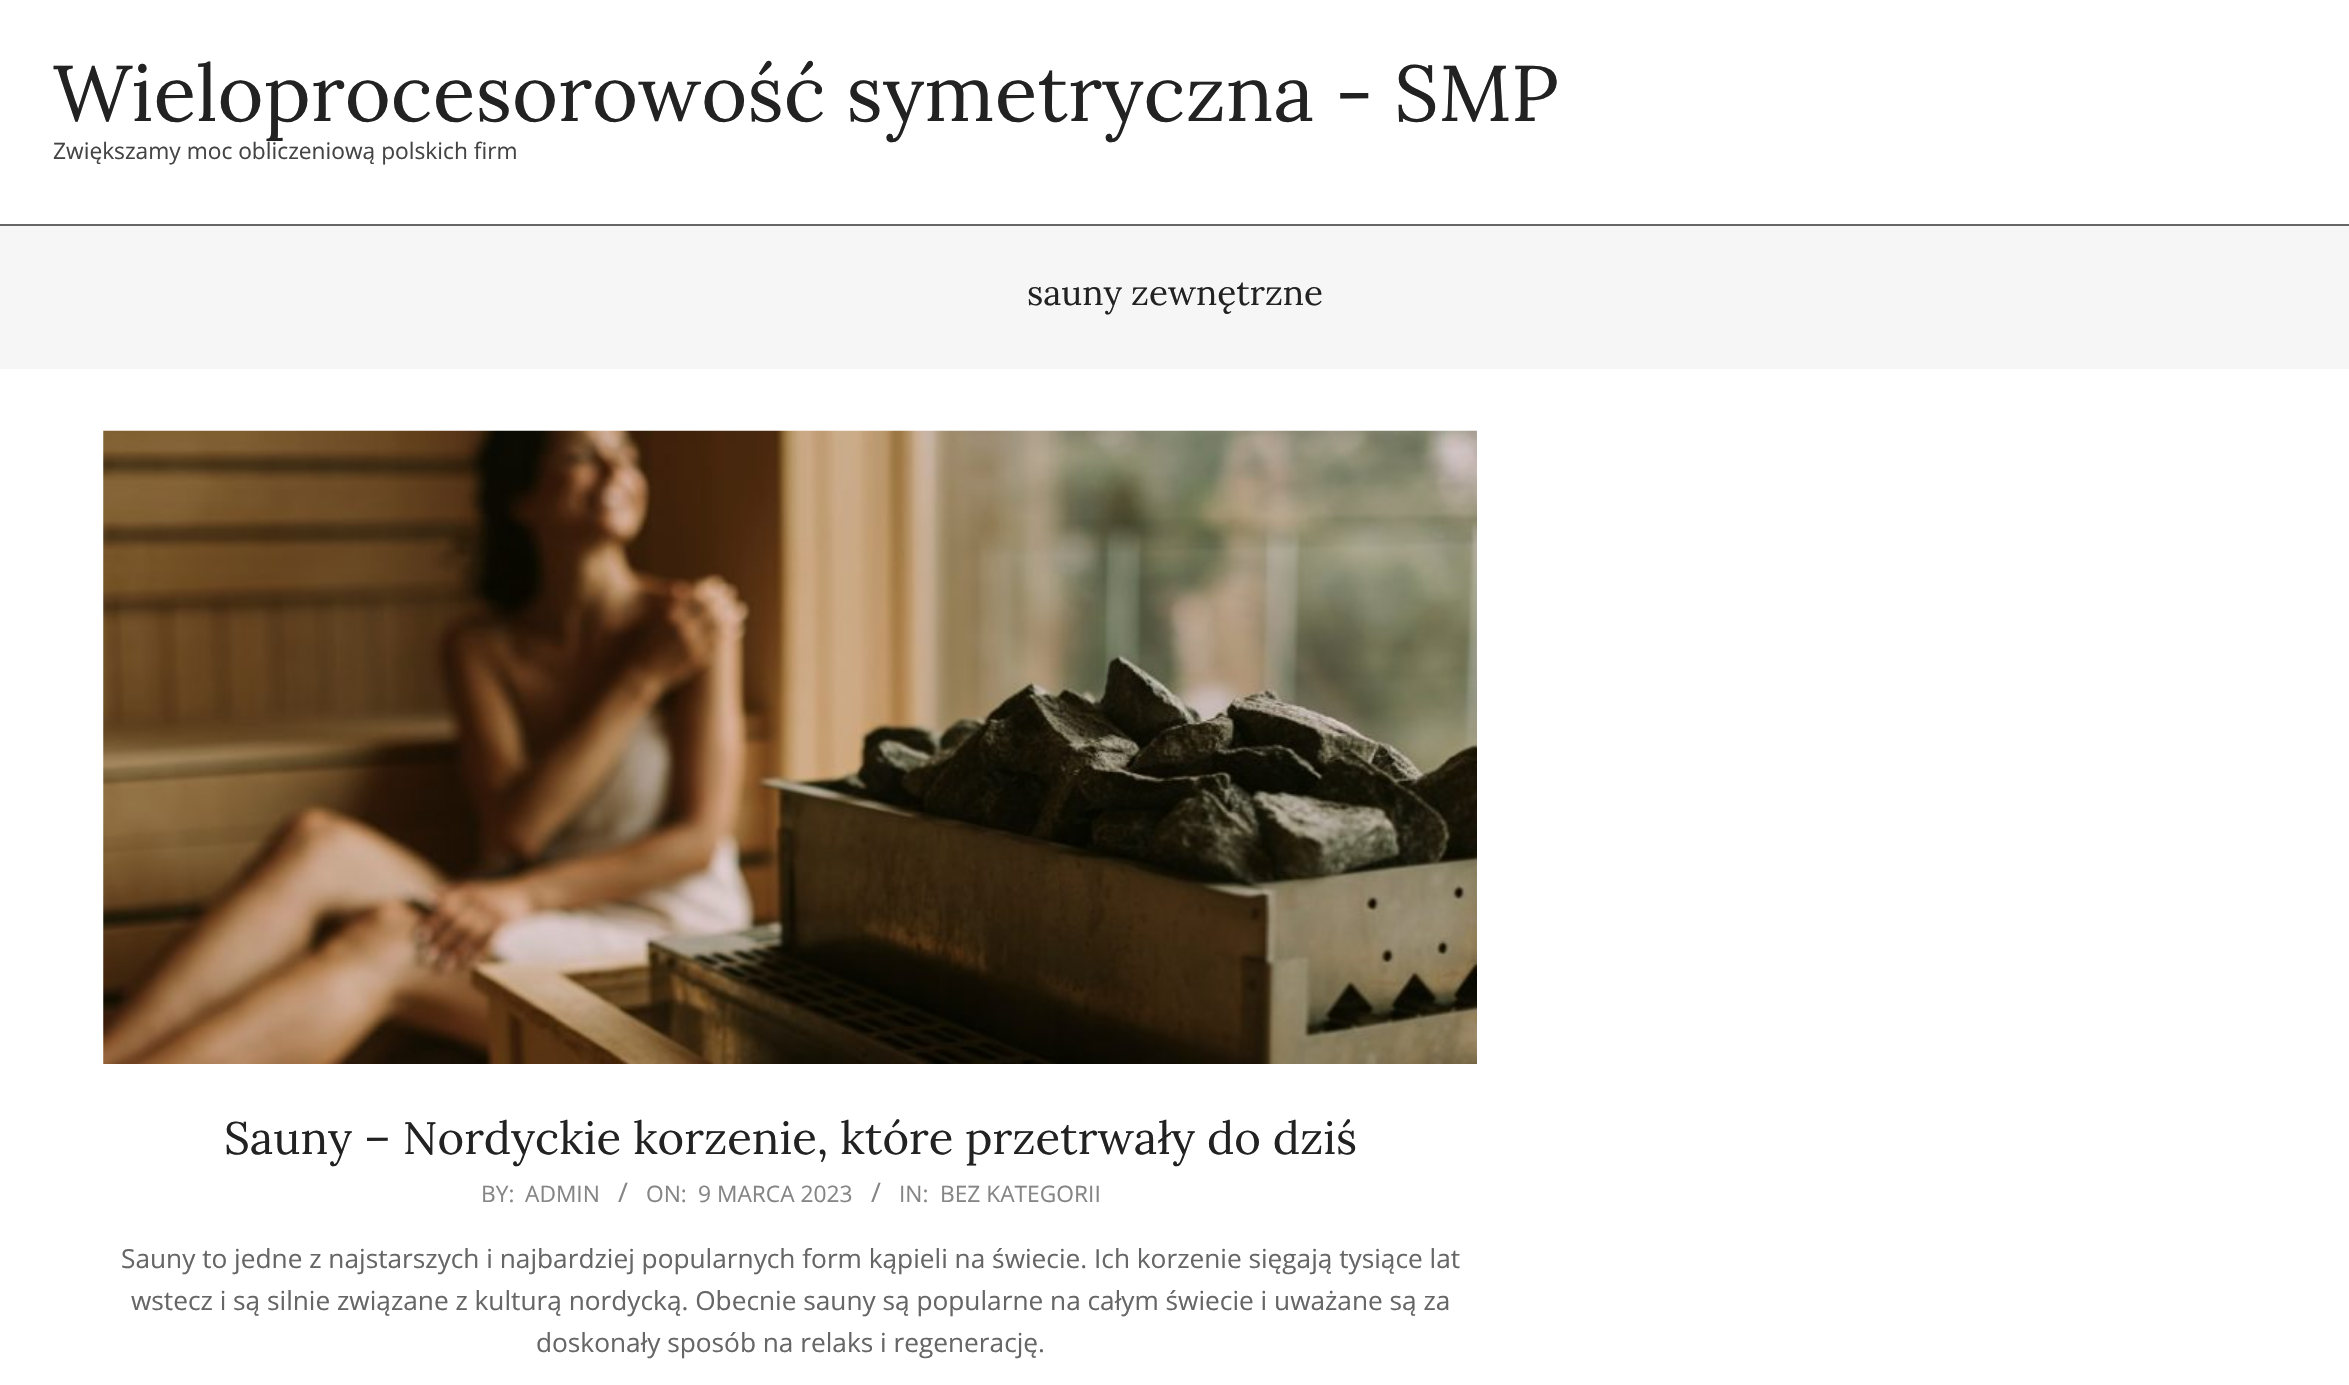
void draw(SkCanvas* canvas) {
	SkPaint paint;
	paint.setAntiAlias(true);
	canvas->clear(0xffffffff);
	paint.setColor(0xff666666);
	canvas->drawRect(SkRect::MakeXYWH(0, 224, 2349, 2), paint);
	SkFont f1(fontMgr->matchFamilyStyle("Lora", SkFontStyle::Normal()), 78.75);
	f1.setSubpixel(true);
	paint.setColor(0xff222222);
	canvas->drawString("Wieloprocesorowość symetryczna - SMP", 53, 121, f1, paint);
	SkFont f2(fontMgr->matchFamilyStyle("Open Sans", SkFontStyle::Normal()), 22.75);
	f2.setSubpixel(true);
	paint.setColor(0xff444444);
	canvas->drawString("Zwiększamy moc obliczeniową polskich firm", 53, 159, f2, paint);
	paint.setColor(0xfff6f6f6);
	canvas->drawRect(SkRect::MakeXYWH(0, 226, 2349, 143), paint);
	SkFont f3(fontMgr->matchFamilyStyle("Lora", SkFontStyle::Normal()), 35);
	f3.setSubpixel(true);
	paint.setColor(0xff222222);
	canvas->drawString("sauny zewnętrzne", 1027, 305, f3, paint);
	canvas->drawImageRect(SkImages::DeferredFromEncodedData(SkData::MakeFromFileName("img1.png")), SkRect::MakeXYWH(103, 430, 1374, 634), SkSamplingOptions());
	SkFont f4(fontMgr->matchFamilyStyle("Lora", SkFontStyle::Normal()), 45.5);
	f4.setSubpixel(true);
	canvas->drawString("Sauny – Nordyckie korzenie, które przetrwały do dziś", 224, 1154, f4, paint);
	paint.setColor(0xff858585);
	canvas->drawString("BY:", 481, 1202, f2, paint);
	canvas->drawString("ADMIN", 525, 1202, f2, paint);
	SkFont f5(fontMgr->matchFamilyStyle("Open Sans", SkFontStyle::Normal()), 27);
	f5.setSubpixel(true);
	canvas->drawString("/", 618, 1202, f5, paint);
	canvas->drawString("ON:", 646, 1202, f2, paint);
	canvas->drawString("9 MARCA 2023", 698, 1202, f2, paint);
	canvas->drawString("/", 871, 1202, f5, paint);
	canvas->drawString("IN:", 899, 1202, f2, paint);
	canvas->drawString("BEZ KATEGORII", 940, 1202, f2, paint);
	SkFont f6(fontMgr->matchFamilyStyle("Open Sans", SkFontStyle::Normal()), 26.25);
	f6.setSubpixel(true);
	paint.setColor(0xff666666);
	canvas->drawString("Sauny to jedne z najstarszych i najbardziej popularnych form kąpieli na świecie. Ich korzenie sięgają tysiące lat", 121, 1268, f6, paint);
	canvas->drawString("wstecz i są silnie związane z kulturą nordycką. Obecnie sauny są popularne na całym świecie i uważane są za", 131, 1310, f6, paint);
	canvas->drawString("doskonały sposób na relaks i regenerację.", 536, 1352, f6, paint);
}
